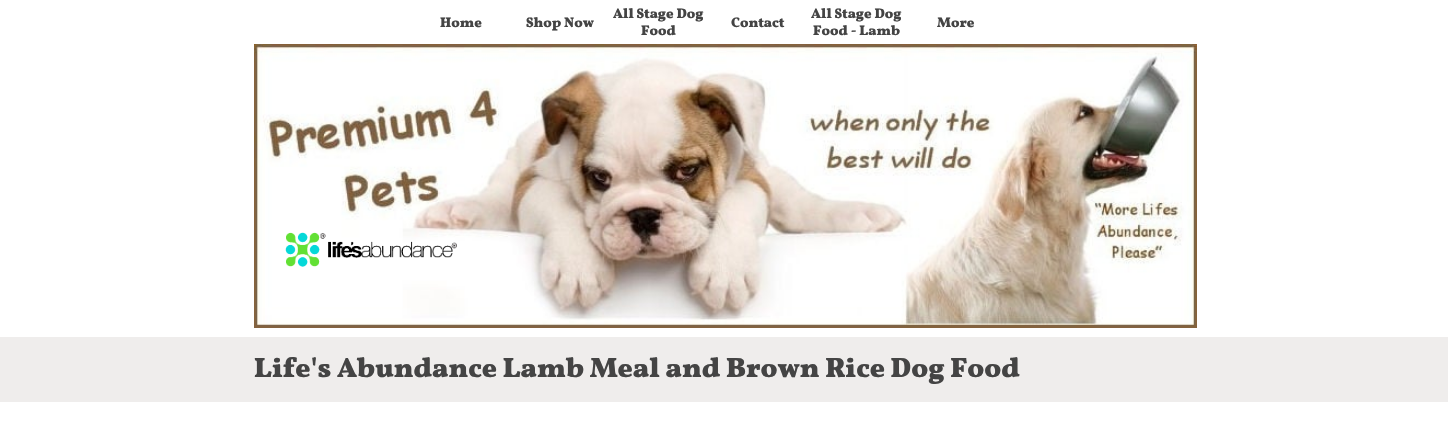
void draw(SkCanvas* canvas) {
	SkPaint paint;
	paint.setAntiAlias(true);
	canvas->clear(0xffffffff);
	SkFont f1(fontMgr->matchFamilyStyle("Vollkorn", SkFontStyle::Bold()), 14);
	f1.setSubpixel(true);
	paint.setColor(0xff444444);
	canvas->drawString("Home", 440, 27, f1, paint);
	canvas->drawString("Shop Now", 526, 27, f1, paint);
	canvas->drawString("All Stage Dog", 613, 18, f1, paint);
	canvas->drawString("Food", 641, 35, f1, paint);
	canvas->drawString("Contact", 731, 27, f1, paint);
	canvas->drawString("All Stage Dog", 811, 18, f1, paint);
	canvas->drawString("Food - Lamb", 813, 35, f1, paint);
	canvas->drawString("More", 937, 27, f1, paint);
	canvas->drawImageRect(SkImages::DeferredFromEncodedData(SkData::MakeFromFileName("img1.png")), SkRect::MakeXYWH(254, 44, 943, 284), SkSamplingOptions());
	canvas->drawImageRect(SkImages::DeferredFromEncodedData(SkData::MakeFromFileName("img2.png")), SkRect::MakeXYWH(285, 232, 172, 35), SkSamplingOptions());
	paint.setColor(0xffefedec);
	canvas->drawRect(SkRect::MakeXYWH(0, 337, 1448, 65), paint);
	SkFont f2(fontMgr->matchFamilyStyle("Vollkorn", SkFontStyle::Bold()), 28);
	f2.setSubpixel(true);
	paint.setColor(0xff444444);
	canvas->drawString("Life's Abundance Lamb Meal and Brown Rice Dog Food", 254, 377, f2, paint);
}
